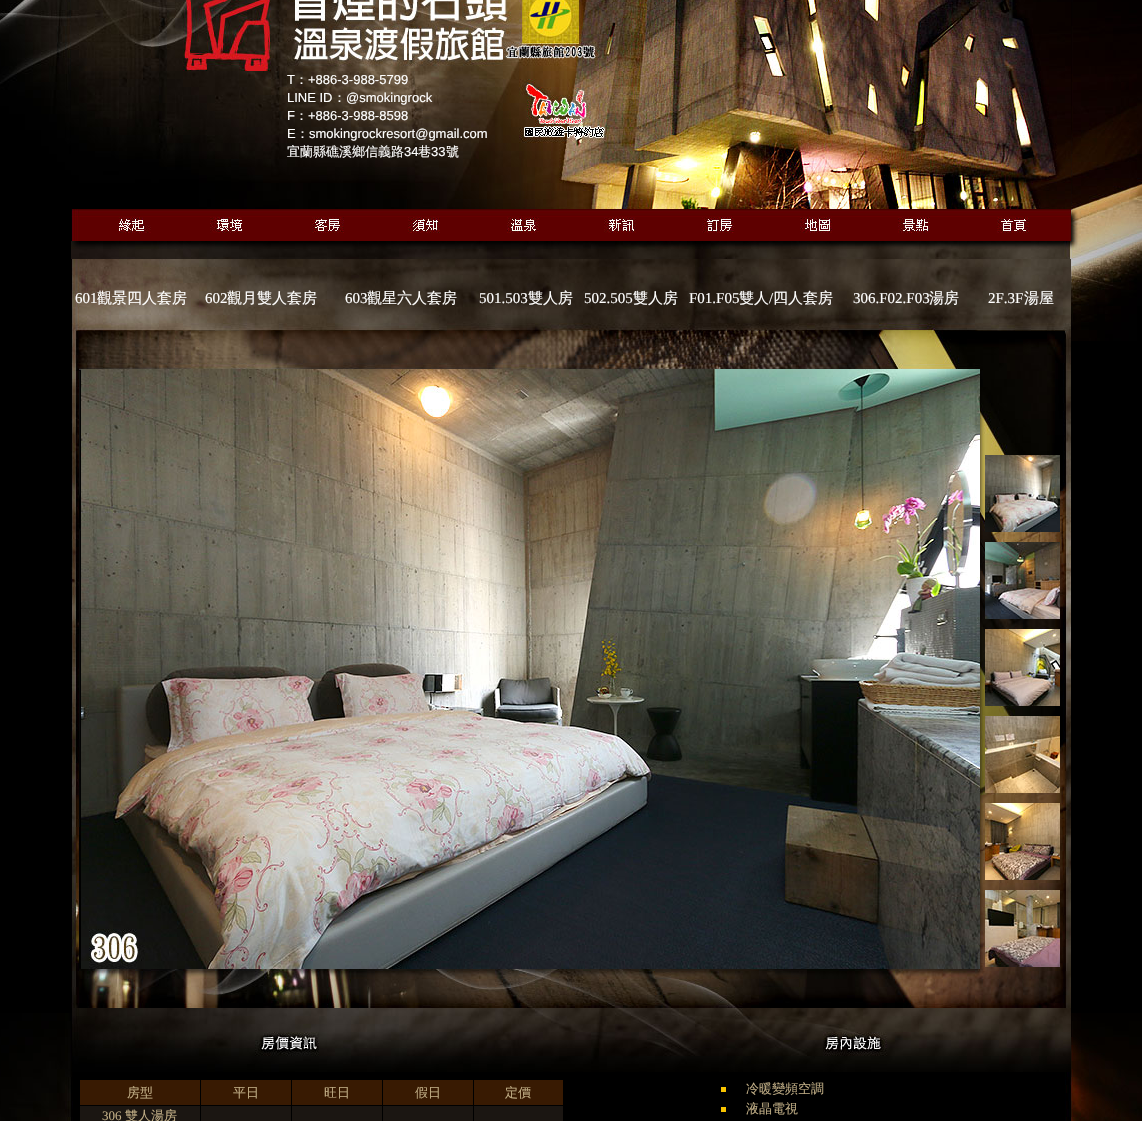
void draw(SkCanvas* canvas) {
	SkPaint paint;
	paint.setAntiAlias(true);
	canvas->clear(0xff000000);
	canvas->drawImageRect(SkImages::DeferredFromEncodedData(SkData::MakeFromFileName("img1.png")), SkRect::MakeXYWH(0, 1013, 1142, 108), SkSamplingOptions());
	canvas->drawImageRect(SkImages::DeferredFromEncodedData(SkData::MakeFromFileName("img2.png")), SkRect::MakeXYWH(0, 0, 1142, 341), SkSamplingOptions());
	canvas->drawImageRect(SkImages::DeferredFromEncodedData(SkData::MakeFromFileName("img3.png")), SkRect::MakeXYWH(71, 0, 586, 71), SkSamplingOptions());
	canvas->drawImageRect(SkImages::DeferredFromEncodedData(SkData::MakeFromFileName("img4.png")), SkRect::MakeXYWH(657, 0, 414, 71), SkSamplingOptions());
	canvas->drawImageRect(SkImages::DeferredFromEncodedData(SkData::MakeFromFileName("img5.png")), SkRect::MakeXYWH(71, 71, 586, 138), SkSamplingOptions());
	SkFont f1(fontMgr->matchFamilyStyle("Liberation Sans", SkFontStyle::Normal()), 13);
	f1.setSubpixel(true);
	paint.setColor(0xffffffff);
	canvas->drawString("T", 287, 84, f1, paint);
	SkFont f2(fontMgr->matchFamilyStyle("WenQuanYi Zen Hei", SkFontStyle(500, SkFontStyle::kNormal_Width, SkFontStyle::kUpright_Slant)), 13);
	f2.setSubpixel(true);
	canvas->drawString("：", 295, 84, f2, paint);
	canvas->drawString("+886-3-988-5799", 308, 84, f1, paint);
	canvas->drawString("LINE ID", 287, 102, f1, paint);
	canvas->drawString("：", 333, 102, f2, paint);
	canvas->drawString("@smokingrock", 346, 102, f1, paint);
	canvas->drawString("F", 287, 120, f1, paint);
	canvas->drawString("：", 295, 120, f2, paint);
	canvas->drawString("+886-3-988-8598", 308, 120, f1, paint);
	canvas->drawString("E", 287, 138, f1, paint);
	canvas->drawString("：", 296, 138, f2, paint);
	canvas->drawString("smokingrockresort@gmail.com", 309, 138, f1, paint);
	canvas->drawString("宜蘭縣礁溪鄉信義路", 287, 156, f2, paint);
	canvas->drawString("34", 404, 156, f1, paint);
	canvas->drawString("巷", 418, 156, f2, paint);
	canvas->drawString("33", 431, 156, f1, paint);
	canvas->drawString("號", 446, 156, f2, paint);
	canvas->drawImageRect(SkImages::DeferredFromEncodedData(SkData::MakeFromFileName("img6.png")), SkRect::MakeXYWH(657, 71, 414, 138), SkSamplingOptions());
	canvas->drawImageRect(SkImages::DeferredFromEncodedData(SkData::MakeFromFileName("img7.png")), SkRect::MakeXYWH(71, 209, 107, 32), SkSamplingOptions());
	canvas->drawImageRect(SkImages::DeferredFromEncodedData(SkData::MakeFromFileName("img8.png")), SkRect::MakeXYWH(178, 209, 102, 32), SkSamplingOptions());
	canvas->drawImageRect(SkImages::DeferredFromEncodedData(SkData::MakeFromFileName("img9.png")), SkRect::MakeXYWH(280, 209, 96, 32), SkSamplingOptions());
	canvas->drawImageRect(SkImages::DeferredFromEncodedData(SkData::MakeFromFileName("img10.png")), SkRect::MakeXYWH(376, 209, 99, 32), SkSamplingOptions());
	canvas->drawImageRect(SkImages::DeferredFromEncodedData(SkData::MakeFromFileName("img11.png")), SkRect::MakeXYWH(475, 209, 97, 32), SkSamplingOptions());
	canvas->drawImageRect(SkImages::DeferredFromEncodedData(SkData::MakeFromFileName("img12.png")), SkRect::MakeXYWH(572, 209, 98, 32), SkSamplingOptions());
	canvas->drawImageRect(SkImages::DeferredFromEncodedData(SkData::MakeFromFileName("img13.png")), SkRect::MakeXYWH(670, 209, 98, 32), SkSamplingOptions());
	canvas->drawImageRect(SkImages::DeferredFromEncodedData(SkData::MakeFromFileName("img14.png")), SkRect::MakeXYWH(768, 209, 98, 32), SkSamplingOptions());
	canvas->drawImageRect(SkImages::DeferredFromEncodedData(SkData::MakeFromFileName("img15.png")), SkRect::MakeXYWH(866, 209, 99, 32), SkSamplingOptions());
	canvas->drawImageRect(SkImages::DeferredFromEncodedData(SkData::MakeFromFileName("img16.png")), SkRect::MakeXYWH(965, 209, 106, 32), SkSamplingOptions());
	canvas->drawImageRect(SkImages::DeferredFromEncodedData(SkData::MakeFromFileName("img17.png")), SkRect::MakeXYWH(71, 241, 1000, 18), SkSamplingOptions());
	canvas->drawImageRect(SkImages::DeferredFromEncodedData(SkData::MakeFromFileName("img18.png")), SkRect::MakeXYWH(71, 259, 1000, 749), SkSamplingOptions());
	SkFont f3(fontMgr->matchFamilyStyle("Liberation Serif", SkFontStyle::Normal()), 15);
	f3.setSubpixel(true);
	canvas->drawString("601", 75, 303, f3, paint);
	SkFont f4(fontMgr->matchFamilyStyle("WenQuanYi Zen Hei", SkFontStyle(500, SkFontStyle::kNormal_Width, SkFontStyle::kUpright_Slant)), 15);
	f4.setSubpixel(true);
	canvas->drawString("觀景四人套房", 97, 303, f4, paint);
	canvas->drawString("602", 205, 303, f3, paint);
	canvas->drawString("觀月雙人套房", 227, 303, f4, paint);
	canvas->drawString("603", 345, 303, f3, paint);
	canvas->drawString("觀星六人套房", 367, 303, f4, paint);
	canvas->drawString("501.503", 479, 303, f3, paint);
	canvas->drawString("雙人房", 528, 303, f4, paint);
	canvas->drawString("502.505", 584, 303, f3, paint);
	canvas->drawString("雙人房", 633, 303, f4, paint);
	canvas->drawString("F01.F05", 689, 303, f3, paint);
	canvas->drawString("雙人", 739, 303, f4, paint);
	canvas->drawString("/", 769, 303, f3, paint);
	canvas->drawString("四人套房", 773, 303, f4, paint);
	canvas->drawString("306.F02.F03", 853, 303, f3, paint);
	canvas->drawString("湯房", 929, 303, f4, paint);
	canvas->drawString("2F.3F", 988, 303, f3, paint);
	canvas->drawString("湯屋", 1024, 303, f4, paint);
	canvas->drawImageRect(SkImages::DeferredFromEncodedData(SkData::MakeFromFileName("img19.png")), SkRect::MakeXYWH(81, 369, 899, 600), SkSamplingOptions());
	canvas->drawImageRect(SkImages::DeferredFromEncodedData(SkData::MakeFromFileName("img20.png")), SkRect::MakeXYWH(985, 455, 75, 77), SkSamplingOptions());
	canvas->drawImageRect(SkImages::DeferredFromEncodedData(SkData::MakeFromFileName("img21.png")), SkRect::MakeXYWH(985, 542, 75, 77), SkSamplingOptions());
	canvas->drawImageRect(SkImages::DeferredFromEncodedData(SkData::MakeFromFileName("img22.png")), SkRect::MakeXYWH(985, 629, 75, 77), SkSamplingOptions());
	canvas->drawImageRect(SkImages::DeferredFromEncodedData(SkData::MakeFromFileName("img23.png")), SkRect::MakeXYWH(985, 716, 75, 77), SkSamplingOptions());
	canvas->drawImageRect(SkImages::DeferredFromEncodedData(SkData::MakeFromFileName("img24.png")), SkRect::MakeXYWH(985, 803, 75, 77), SkSamplingOptions());
	canvas->drawImageRect(SkImages::DeferredFromEncodedData(SkData::MakeFromFileName("img25.png")), SkRect::MakeXYWH(985, 890, 75, 77), SkSamplingOptions());
	canvas->drawImageRect(SkImages::DeferredFromEncodedData(SkData::MakeFromFileName("img26.png")), SkRect::MakeXYWH(72, 1008, 999, 64), SkSamplingOptions());
	paint.setColor(0xff381a02);
	canvas->drawRect(SkRect::MakeXYWH(80, 1080, 120, 25), paint);
	paint.setColor(0xffc0ad85);
	canvas->drawString("房型", 127, 1097, f2, paint);
	paint.setColor(0xff381a02);
	canvas->drawRect(SkRect::MakeXYWH(201, 1080, 90, 25), paint);
	paint.setColor(0xffc0ad85);
	canvas->drawString("平日", 233, 1097, f2, paint);
	paint.setColor(0xff381a02);
	canvas->drawRect(SkRect::MakeXYWH(292, 1080, 90, 25), paint);
	paint.setColor(0xffc0ad85);
	canvas->drawString("旺日", 324, 1097, f2, paint);
	paint.setColor(0xff381a02);
	canvas->drawRect(SkRect::MakeXYWH(383, 1080, 90, 25), paint);
	paint.setColor(0xffc0ad85);
	canvas->drawString("假日", 415, 1097, f2, paint);
	paint.setColor(0xff381a02);
	canvas->drawRect(SkRect::MakeXYWH(474, 1080, 89, 25), paint);
	paint.setColor(0xffc0ad85);
	canvas->drawString("定價", 505, 1097, f2, paint);
	paint.setColor(0xff1b1612);
	canvas->drawRect(SkRect::MakeXYWH(80, 1106, 120, 15), paint);
	SkFont f5(fontMgr->matchFamilyStyle("Liberation Serif", SkFontStyle::Normal()), 13);
	f5.setSubpixel(true);
	paint.setColor(0xffc0ad85);
	canvas->drawString("306", 102, 1120, f5, paint);
	canvas->drawString("雙人湯房", 125, 1120, f2, paint);
	paint.setColor(0xff1b1612);
	canvas->drawRect(SkRect::MakeXYWH(201, 1106, 90, 15), paint);
	canvas->drawRect(SkRect::MakeXYWH(292, 1106, 90, 15), paint);
	canvas->drawRect(SkRect::MakeXYWH(383, 1106, 90, 15), paint);
	canvas->drawRect(SkRect::MakeXYWH(474, 1106, 89, 15), paint);
	paint.setColor(0xfff8c400);
	canvas->drawRect(SkRect::MakeXYWH(721, 1087, 5, 5), paint);
	paint.setColor(0xffc0ad85);
	canvas->drawString("冷暖變頻空調", 746, 1093, f2, paint);
	paint.setColor(0xfff8c400);
	canvas->drawRect(SkRect::MakeXYWH(721, 1107, 5, 5), paint);
	paint.setColor(0xffc0ad85);
	canvas->drawString("液晶電視", 746, 1113, f2, paint);
}
